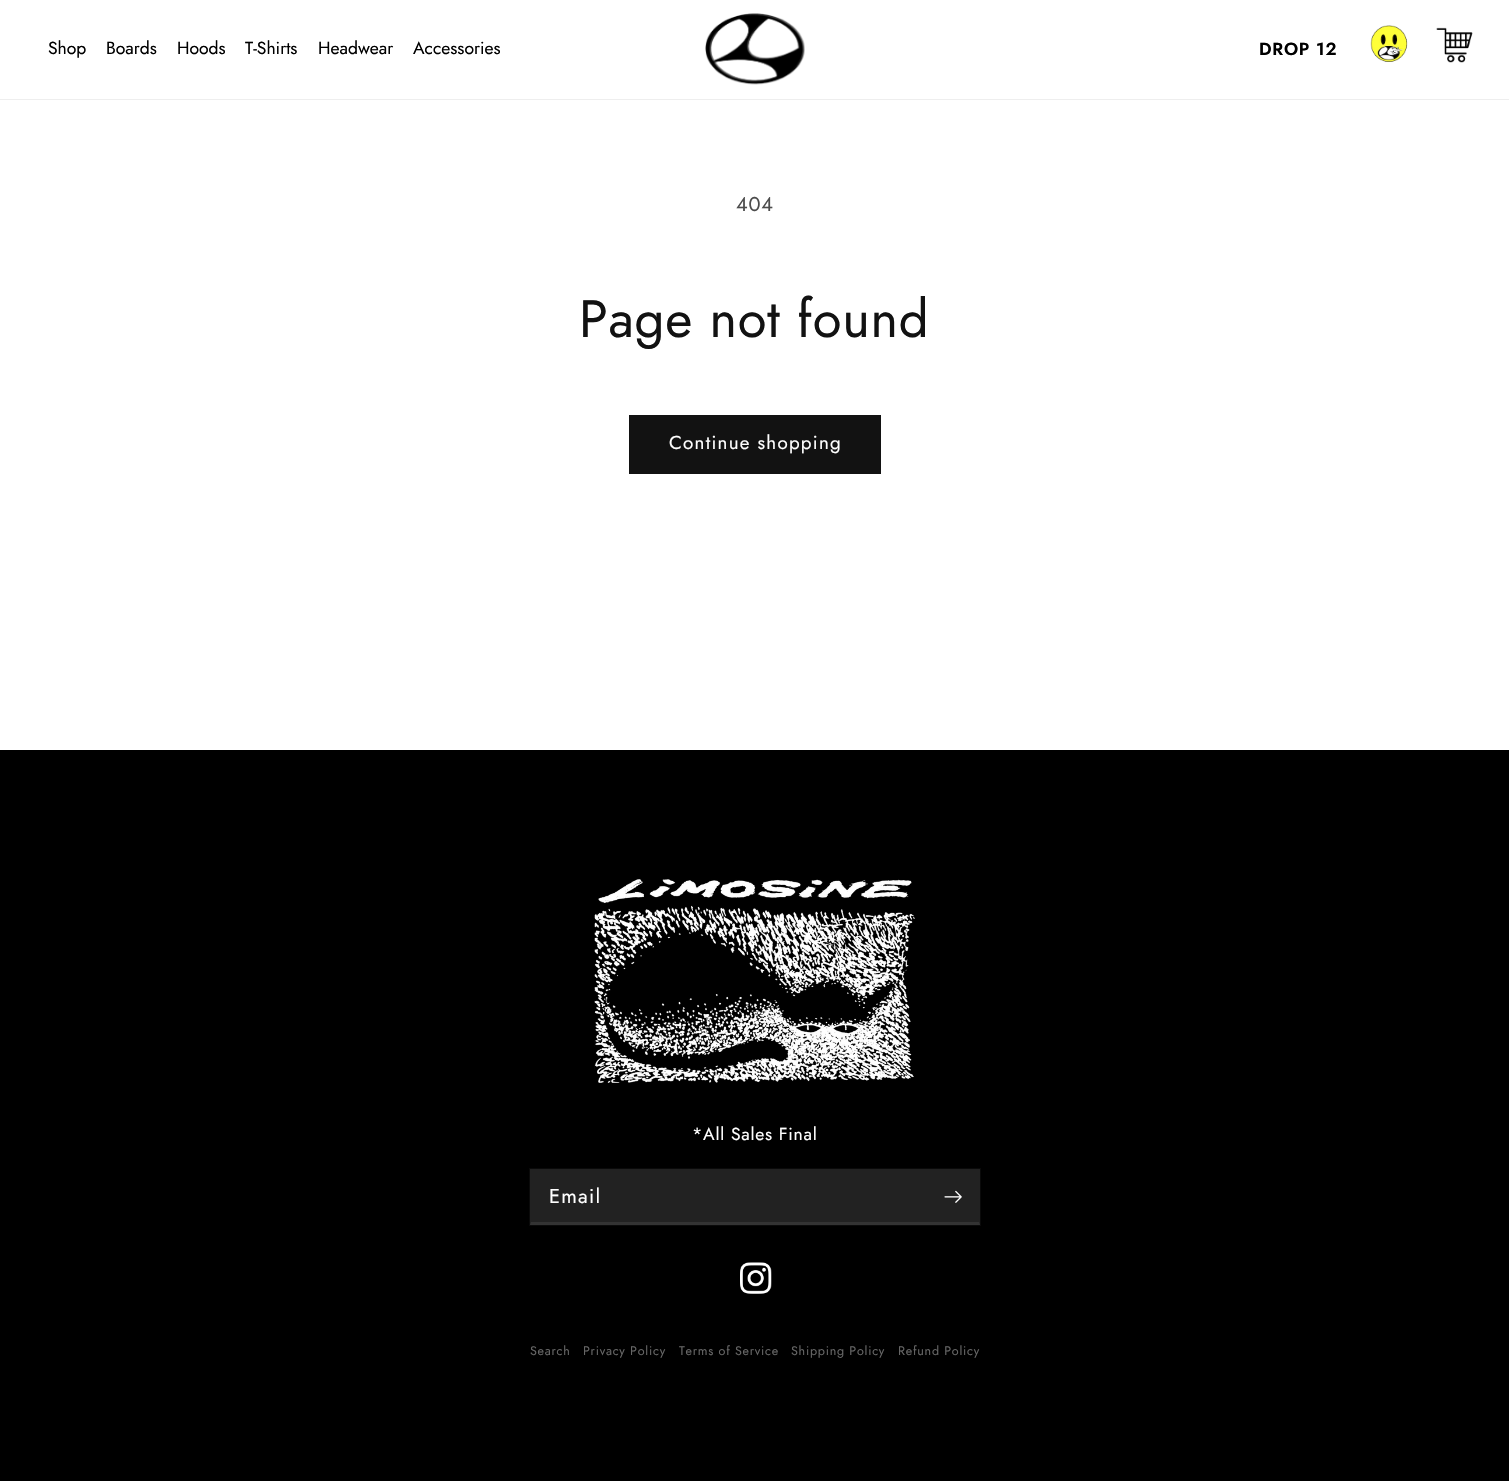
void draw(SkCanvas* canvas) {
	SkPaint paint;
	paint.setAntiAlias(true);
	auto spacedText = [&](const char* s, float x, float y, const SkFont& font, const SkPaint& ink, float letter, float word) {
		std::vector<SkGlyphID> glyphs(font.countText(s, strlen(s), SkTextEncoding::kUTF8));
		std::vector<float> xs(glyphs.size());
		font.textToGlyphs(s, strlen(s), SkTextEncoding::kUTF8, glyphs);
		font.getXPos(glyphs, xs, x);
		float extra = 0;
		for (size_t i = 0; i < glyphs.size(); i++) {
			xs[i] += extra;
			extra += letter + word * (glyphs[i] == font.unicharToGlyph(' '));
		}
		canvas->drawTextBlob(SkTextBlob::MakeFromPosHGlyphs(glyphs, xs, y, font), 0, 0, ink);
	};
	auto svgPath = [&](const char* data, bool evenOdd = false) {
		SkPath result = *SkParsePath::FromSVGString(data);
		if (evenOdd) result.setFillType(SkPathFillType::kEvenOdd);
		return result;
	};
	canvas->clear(0xffffffff);
	paint.setColor(0xffeeeeee);
	canvas->drawRect(SkRect::MakeXYWH(0, 99, 1509, 1), paint);
	SkFont f1(fontMgr->matchFamilyStyle("Jost", SkFontStyle::Normal()), 17.5);
	f1.setSubpixel(true);
	paint.setColor(0xff000000);
	canvas->drawString("Shop", 48, 54, f1, paint);
	canvas->drawString("Boards", 106, 54, f1, paint);
	canvas->drawString("Hoods", 177, 54, f1, paint);
	canvas->drawString("T-Shirts", 245, 54, f1, paint);
	canvas->drawString("Headwear", 318, 54, f1, paint);
	canvas->drawString("Accessories", 413, 54, f1, paint);
	canvas->drawImageRect(SkImages::DeferredFromEncodedData(SkData::MakeFromFileName("img1.png")), SkRect::MakeXYWH(705, 13, 100, 72), SkSamplingOptions());
	SkFont f2(fontMgr->matchFamilyStyle("Jost", SkFontStyle(600, SkFontStyle::kNormal_Width, SkFontStyle::kUpright_Slant)), 17.5);
	f2.setSubpixel(true);
	spacedText("DROP 12", 1259, 55, f2, paint, 0.75, 0);
	canvas->drawImageRect(SkImages::DeferredFromEncodedData(SkData::MakeFromFileName("img2.png")), SkRect::MakeXYWH(1370, 25, 38, 37), SkSamplingOptions());
	canvas->drawImageRect(SkImages::DeferredFromEncodedData(SkData::MakeFromFileName("img3.png")), SkRect::MakeXYWH(1436, 27, 37, 36), SkSamplingOptions());
	SkFont f3(fontMgr->matchFamilyStyle("Jost", SkFontStyle::Normal()), 20);
	f3.setSubpixel(true);
	paint.setColor(0xff4d4d4d);
	spacedText("404", 736, 211, f3, paint, 0.75, 0);
	SkFont f4(fontMgr->matchFamilyStyle("Jost", SkFontStyle::Normal()), 52.5);
	f4.setSubpixel(true);
	paint.setColor(0xff121212);
	spacedText("Page not found", 579, 337, f4, paint, 0.75, 0);
	paint.setStroke(true);
	paint.setStrokeWidth(1);
	canvas->drawRect(SkRect::MakeXYWH(629.5, 415.5, 251, 58), paint);
	paint.setStroke(false);
	canvas->drawRect(SkRect::MakeXYWH(630, 416, 250, 57), paint);
	SkFont f5(fontMgr->matchFamilyStyle("Jost", SkFontStyle::Normal()), 18.75);
	f5.setSubpixel(true);
	paint.setColor(0xffffffff);
	spacedText("Continue shopping", 669, 449, f5, paint, 1.25, 0);
	paint.setColor(0xff000000);
	canvas->drawRect(SkRect::MakeXYWH(0, 750, 1509, 731), paint);
	canvas->drawImageRect(SkImages::DeferredFromEncodedData(SkData::MakeFromFileName("img4.png")), SkRect::MakeXYWH(594, 879, 321, 204), SkSamplingOptions());
	paint.setColor(0xffffffff);
	spacedText("*All Sales Final", 692, 1140, f1, paint, 0.75, 0);
	paint.setStroke(true);
	paint.setColor(0xff0a0a0a);
	canvas->drawRect(SkRect::MakeXYWH(529.5, 1168.5, 451, 57), paint);
	paint.setStroke(false);
	paint.setColor(0xff222222);
	canvas->drawRect(SkRect::MakeXYWH(530, 1169, 450, 56), paint);
	paint.setColor(0xff333333);
	canvas->drawPath(svgPath("M980 1225H530L531 1222H979Z"), paint);
	paint.setColor(0xffffffff);
	spacedText("Email", 549, 1203, f3, paint, 1.25, 0);
	canvas->drawImageRect(SkImages::DeferredFromEncodedData(SkData::MakeFromFileName("img5.png")), SkRect::MakeXYWH(944, 1190, 18, 13), SkSamplingOptions());
	canvas->drawImageRect(SkImages::DeferredFromEncodedData(SkData::MakeFromFileName("img6.png")), SkRect::MakeXYWH(740, 1262, 32, 32), SkSamplingOptions());
	SkFont f6(fontMgr->matchFamilyStyle("Jost", SkFontStyle::Normal()), 12.5);
	f6.setSubpixel(true);
	paint.setColor(0xff666666);
	spacedText("Search", 530, 1355, f6, paint, 0.75, 0);
	spacedText("Privacy Policy", 583, 1355, f6, paint, 0.75, 0);
	spacedText("Terms of Service", 679, 1355, f6, paint, 0.75, 0);
	spacedText("Shipping Policy", 791, 1355, f6, paint, 0.75, 0);
	spacedText("Refund Policy", 898, 1355, f6, paint, 0.75, 0);
}
